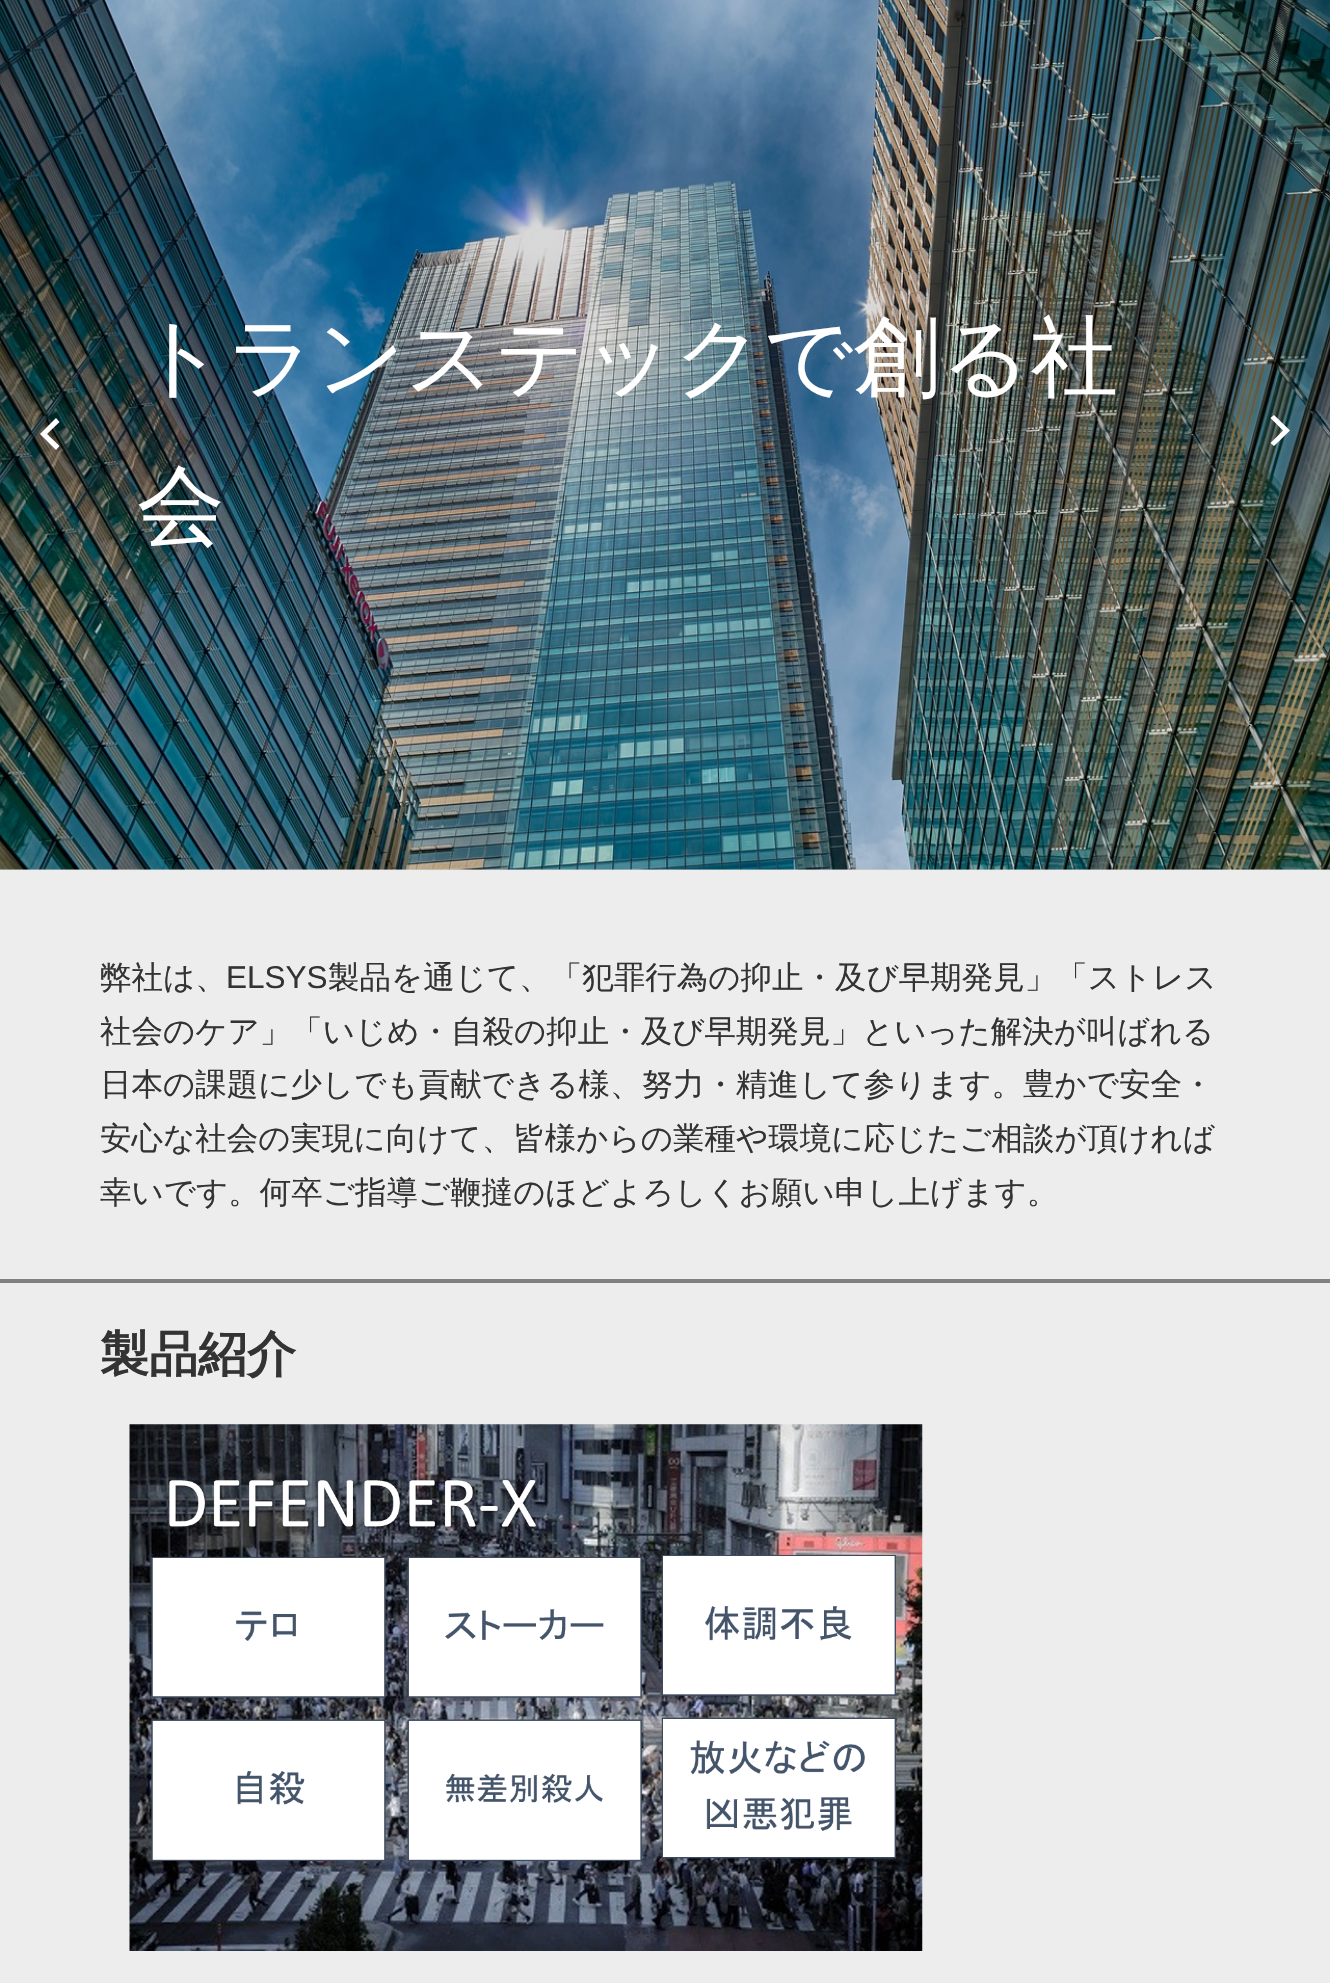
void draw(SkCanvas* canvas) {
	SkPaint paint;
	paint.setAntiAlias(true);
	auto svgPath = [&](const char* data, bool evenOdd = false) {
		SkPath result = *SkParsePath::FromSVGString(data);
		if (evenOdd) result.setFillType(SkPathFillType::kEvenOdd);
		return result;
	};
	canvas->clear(0xffededed);
	paint.setColor(0xffd1d1d1);
	canvas->drawRect(SkRect::MakeXYWH(0, 869, 1330, 1), paint);
	canvas->drawImageRect(SkImages::DeferredFromEncodedData(SkData::MakeFromFileName("img1.png")), SkRect::MakeXYWH(0, 0, 1330, 870), SkSamplingOptions());
	paint.setColor(0xffffffff);
	canvas->drawPath(svgPath("M59.5 422L47 434L59.5 446L56 450L40 434L56 418Z"), paint);
	SkFont f1(fontMgr->matchFamilyStyle("WenQuanYi Zen Hei", SkFontStyle(500, SkFontStyle::kNormal_Width, SkFontStyle::kUpright_Slant)), 87.5);
	f1.setSubpixel(true);
	canvas->drawString("トランステックで創る社", 137, 387, f1, paint);
	canvas->drawString("会", 137, 536, f1, paint);
	canvas->drawPath(svgPath("M1270.5 443L1283 430.5L1270.5 418L1274 415L1290 430.5L1274 446Z"), paint);
	SkFont f2(fontMgr->matchFamilyStyle("WenQuanYi Zen Hei", SkFontStyle(500, SkFontStyle::kNormal_Width, SkFontStyle::kUpright_Slant)), 31.5);
	f2.setSubpixel(true);
	paint.setColor(0xff333333);
	canvas->drawString("弊社は、", 100, 988, f2, paint);
	SkFont f3(fontMgr->matchFamilyStyle("Liberation Sans", SkFontStyle::Normal()), 31.5);
	f3.setSubpixel(true);
	canvas->drawString("ELSYS", 226, 988, f3, paint);
	canvas->drawString("製品を通じて、「犯罪行為の抑止・及び早期発見」「ストレス", 328, 988, f2, paint);
	canvas->drawString("社会のケア」「いじめ・自殺の抑止・及び早期発見」といった解決が叫ばれる", 100, 1042, f2, paint);
	canvas->drawString("日本の課題に少しでも貢献できる様、努力・精進して参ります。豊かで安全・", 100, 1095, f2, paint);
	canvas->drawString("安心な社会の実現に向けて、皆様からの業種や環境に応じたご相談が頂ければ", 100, 1149, f2, paint);
	canvas->drawString("幸いです。何卒ご指導ご鞭撻のほどよろしくお願い申し上げます。", 100, 1203, f2, paint);
	paint.setColor(0xff808080);
	canvas->drawRect(SkRect::MakeXYWH(0, 1279, 1330, 4), paint);
	SkFont f4(fontMgr->matchFamilyStyle("WenQuanYi Zen Hei", SkFontStyle::Bold()), 49);
	f4.setSubpixel(true);
	paint.setColor(0xff333333);
	canvas->drawString("製品紹介", 100, 1371, f4, paint);
	canvas->drawImageRect(SkImages::DeferredFromEncodedData(SkData::MakeFromFileName("img2.png")), SkRect::MakeXYWH(129, 1424, 794, 527), SkSamplingOptions());
}
